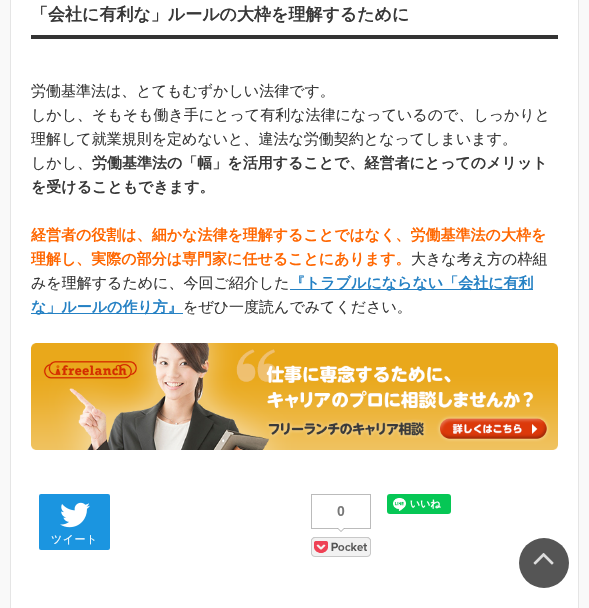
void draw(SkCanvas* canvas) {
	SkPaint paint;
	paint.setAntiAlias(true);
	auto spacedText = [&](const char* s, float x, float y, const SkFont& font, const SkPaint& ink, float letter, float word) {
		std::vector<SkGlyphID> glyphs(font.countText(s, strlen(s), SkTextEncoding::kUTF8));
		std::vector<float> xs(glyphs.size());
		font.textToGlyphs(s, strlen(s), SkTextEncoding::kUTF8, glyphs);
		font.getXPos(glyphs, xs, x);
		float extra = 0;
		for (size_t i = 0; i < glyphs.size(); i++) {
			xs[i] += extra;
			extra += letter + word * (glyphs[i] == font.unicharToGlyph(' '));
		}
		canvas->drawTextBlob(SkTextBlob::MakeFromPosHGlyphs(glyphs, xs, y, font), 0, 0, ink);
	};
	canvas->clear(0xfff9f9f9);
	paint.setColor(0xffffffff);
	canvas->drawRect(SkRect::MakeXYWH(10.5, -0.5, 568, 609), paint);
	paint.setStroke(true);
	paint.setStrokeWidth(1);
	paint.setColor(0xffe5e5e5);
	canvas->drawRect(SkRect::MakeXYWH(10.5, -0.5, 568, 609), paint);
	paint.setStroke(false);
	paint.setColor(0xff333333);
	canvas->drawRect(SkRect::MakeXYWH(31, 35, 527, 4), paint);
	SkFont f1(fontMgr->matchFamilyStyle("WenQuanYi Zen Hei", SkFontStyle::Bold()), 17);
	f1.setSubpixel(true);
	paint.setColor(0xff383838);
	canvas->drawString("「会社に有利な」ルールの大枠を理解するために", 31, 20, f1, paint);
	SkFont f2(fontMgr->matchFamilyStyle("WenQuanYi Zen Hei", SkFontStyle(500, SkFontStyle::kNormal_Width, SkFontStyle::kUpright_Slant)), 15);
	f2.setSubpixel(true);
	canvas->drawString("労働基準法は、とてもむずかしい法律です。", 31, 96, f2, paint);
	canvas->drawString("しかし、そもそも働き手にとって有利な法律になっているので、しっかりと", 31, 120, f2, paint);
	canvas->drawString("理解して就業規則を定めないと、違法な労働契約となってしまいます。", 31, 144, f2, paint);
	canvas->drawString("しかし、", 31, 168, f2, paint);
	SkFont f3(fontMgr->matchFamilyStyle("WenQuanYi Zen Hei", SkFontStyle::Bold()), 15);
	f3.setSubpixel(true);
	canvas->drawString("労働基準法の「幅」を活用することで、経営者にとってのメリット", 92, 168, f3, paint);
	canvas->drawString("を受けることもできます。", 31, 192, f3, paint);
	paint.setColor(0xffff6600);
	canvas->drawString("経営者の役割は、細かな法律を理解することではなく、労働基準法の大枠を", 31, 240, f3, paint);
	canvas->drawString("理解し、実際の部分は専門家に任せることにあります。", 31, 264, f3, paint);
	paint.setColor(0xff383838);
	canvas->drawString("大きな考え方の枠組", 411, 264, f2, paint);
	canvas->drawString("みを理解するために、今回ご紹介した", 31, 288, f2, paint);
	paint.setColor(0xff2581c4);
	canvas->drawRect(SkRect::MakeXYWH(290, 289, 243, 1), paint);
	canvas->drawString("『トラブルにならない「会社に有利", 290, 288, f3, paint);
	canvas->drawRect(SkRect::MakeXYWH(31, 313, 152, 1), paint);
	canvas->drawString("な」ルールの作り方』", 31, 312, f3, paint);
	paint.setColor(0xff383838);
	canvas->drawString("をぜひ一度読んでみてください。", 183, 312, f2, paint);
	canvas->drawImageRect(SkImages::DeferredFromEncodedData(SkData::MakeFromFileName("img1.png")), SkRect::MakeXYWH(31, 343, 527, 107), SkSamplingOptions());
	canvas->drawImageRect(SkImages::DeferredFromEncodedData(SkData::MakeFromFileName("img2.png")), SkRect::MakeXYWH(311, 494, 60, 63), SkSamplingOptions());
	canvas->drawImageRect(SkImages::DeferredFromEncodedData(SkData::MakeFromFileName("img3.png")), SkRect::MakeXYWH(387, 494, 64, 20), SkSamplingOptions());
	paint.setColor(0xff1b95e0);
	canvas->drawRoundRect(SkRect::MakeXYWH(39, 494, 71, 56), 2, 2, paint);
	canvas->drawImageRect(SkImages::DeferredFromEncodedData(SkData::MakeFromFileName("img4.png")), SkRect::MakeXYWH(60, 502, 30, 26), SkSamplingOptions());
	SkFont f4(fontMgr->matchFamilyStyle("WenQuanYi Zen Hei", SkFontStyle(500, SkFontStyle::kNormal_Width, SkFontStyle::kUpright_Slant)), 11);
	f4.setSubpixel(true);
	paint.setColor(0xffffffff);
	spacedText("ツイート", 51, 543, f4, paint, 0.5, 0);
	paint.setColor(0xff555555);
	canvas->drawCircle(544, 563, 25, paint);
	canvas->drawImageRect(SkImages::DeferredFromEncodedData(SkData::MakeFromFileName("img5.png")), SkRect::MakeXYWH(533, 553, 21, 12), SkSamplingOptions());
}
